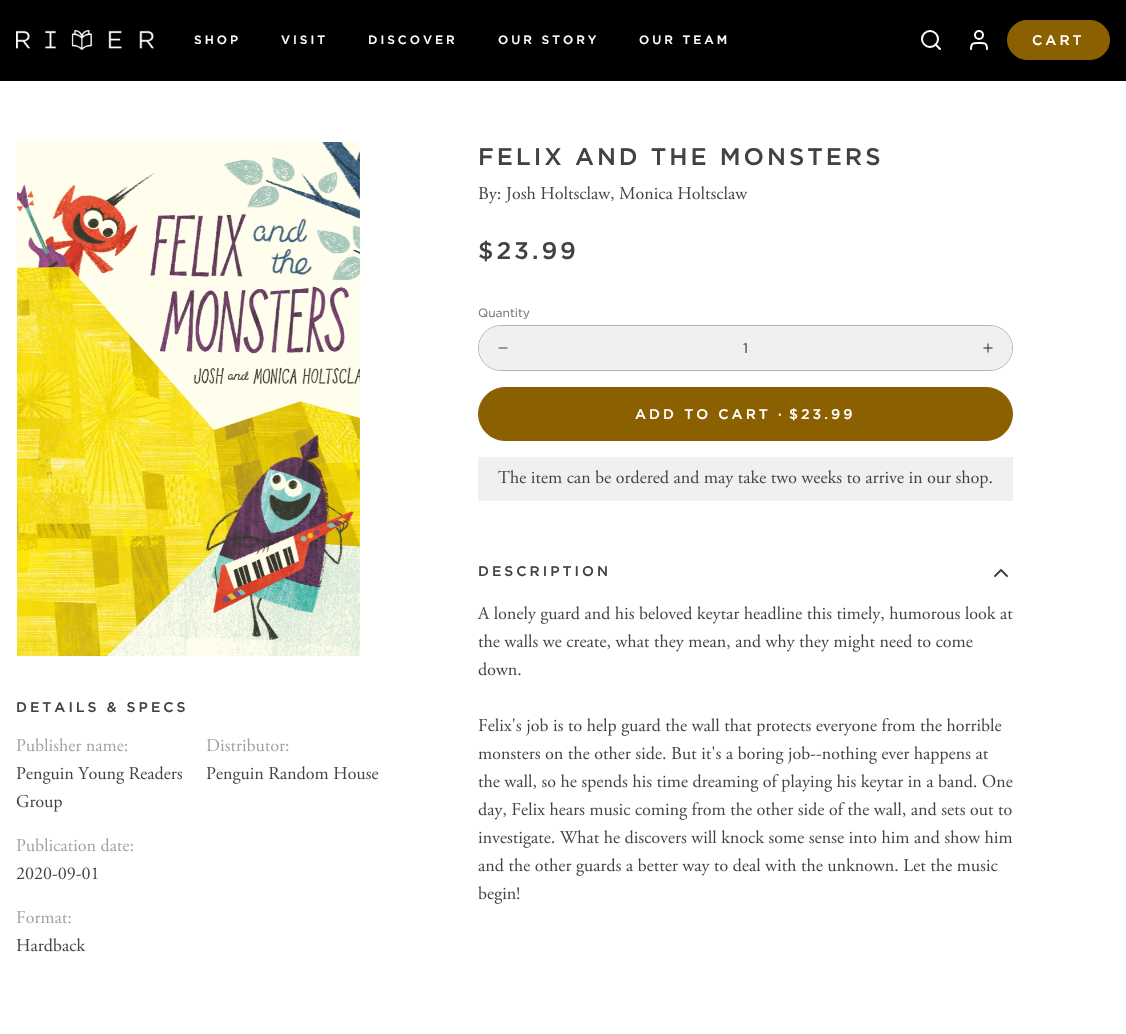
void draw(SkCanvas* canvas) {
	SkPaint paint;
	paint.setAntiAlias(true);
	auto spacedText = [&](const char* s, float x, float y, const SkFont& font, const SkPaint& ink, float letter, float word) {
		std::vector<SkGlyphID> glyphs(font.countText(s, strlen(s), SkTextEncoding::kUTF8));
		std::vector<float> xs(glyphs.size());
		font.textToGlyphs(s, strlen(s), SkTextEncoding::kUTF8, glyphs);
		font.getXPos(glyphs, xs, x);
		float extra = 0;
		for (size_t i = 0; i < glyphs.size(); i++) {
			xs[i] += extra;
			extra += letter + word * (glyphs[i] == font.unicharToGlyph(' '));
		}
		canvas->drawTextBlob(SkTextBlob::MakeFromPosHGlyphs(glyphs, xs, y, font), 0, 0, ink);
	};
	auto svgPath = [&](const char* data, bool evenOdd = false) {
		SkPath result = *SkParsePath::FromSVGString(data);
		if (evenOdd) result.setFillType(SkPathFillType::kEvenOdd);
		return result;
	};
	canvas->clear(0xffffffff);
	paint.setColor(0xff000000);
	canvas->drawRect(SkRect::MakeXYWH(0, 0, 1126, 81), paint);
	canvas->drawImageRect(SkImages::DeferredFromEncodedData(SkData::MakeFromFileName("img1.png")), SkRect::MakeXYWH(16, 30, 138, 20), SkSamplingOptions());
	SkFont f1(fontMgr->matchFamilyStyle("Gotham", SkFontStyle(500, SkFontStyle::kNormal_Width, SkFontStyle::kUpright_Slant)), 12);
	f1.setSubpixel(true);
	paint.setColor(0xffffffff);
	spacedText("SHOP", 194, 44, f1, paint, 3, 0);
	spacedText("VISIT", 281, 44, f1, paint, 3, 0);
	spacedText("DISCOVER", 368, 44, f1, paint, 3, 0);
	spacedText("OUR STORY", 498, 44, f1, paint, 3, 0);
	spacedText("OUR TEAM", 639, 44, f1, paint, 3, 0);
	paint.setStroke(true);
	paint.setStrokeWidth(2);
	canvas->drawCircle(930, 39, 8, paint);
	paint.setStrokeCap(SkPaint::kRound_Cap);
	paint.setStrokeJoin(SkPaint::kRound_Join);
	canvas->drawPath(svgPath("M940 49L935.5 44.5M987 49C987 42.5 984.5 43 979 43C973.5 43 971 42.5 971 49"), paint);
	paint.setStrokeCap(SkPaint::kButt_Cap);
	paint.setStrokeJoin(SkPaint::kMiter_Join);
	canvas->drawCircle(979, 35, 4, paint);
	paint.setStroke(false);
	paint.setColor(0xff8b6000);
	canvas->drawRoundRect(SkRect::MakeXYWH(1007.5, 20.5, 102, 39), 19.5, 19.5, paint);
	paint.setStroke(true);
	paint.setStrokeWidth(1);
	canvas->drawRoundRect(SkRect::MakeXYWH(1007.5, 20.5, 102, 39), 19.5, 19.5, paint);
	SkFont f2(fontMgr->matchFamilyStyle("Gotham", SkFontStyle(500, SkFontStyle::kNormal_Width, SkFontStyle::kUpright_Slant)), 14);
	f2.setSubpixel(true);
	paint.setStroke(false);
	paint.setColor(0xffffffff);
	spacedText("CART", 1032, 45, f2, paint, 3, 0);
	SkFont f3(fontMgr->matchFamilyStyle("Gotham", SkFontStyle(500, SkFontStyle::kNormal_Width, SkFontStyle::kUpright_Slant)), 24);
	f3.setSubpixel(true);
	paint.setColor(0xff424242);
	spacedText("FELIX AND THE MONSTERS", 478, 165, f3, paint, 3, 0);
	canvas->drawImageRect(SkImages::DeferredFromEncodedData(SkData::MakeFromFileName("img2.png")), SkRect::MakeXYWH(478, 186, 270, 18), SkSamplingOptions());
	spacedText("$23.99", 478, 259, f3, paint, 3, 0);
	SkFont f4(fontMgr->matchFamilyStyle("Gotham", SkFontStyle::Normal()), 12);
	f4.setSubpixel(true);
	paint.setColor(0xff717171);
	canvas->drawString("Quantity", 478, 317, f4, paint);
	paint.setColor(0xfff0f0f0);
	canvas->drawRoundRect(SkRect::MakeXYWH(478.5, 325.5, 534, 45), 22.5, 22.5, paint);
	paint.setStroke(true);
	paint.setColor(0xffb3b3b3);
	canvas->drawRoundRect(SkRect::MakeXYWH(478.5, 325.5, 534, 45), 22.5, 22.5, paint);
	paint.setStroke(false);
	paint.setColor(0xfff0f0f0);
	canvas->drawPath(svgPath("M501 326H527V370H501C489 370 479 360 479 348C479 336 489 326 501 326Z"), paint);
	canvas->drawPath(svgPath("M501 326L494 327H526V369H494L501 370H527V326ZM480 355C479 350 479 346 480 341Z", true), paint);
	paint.setStroke(true);
	paint.setStrokeWidth(1.2);
	paint.setStrokeCap(SkPaint::kRound_Cap);
	paint.setStrokeJoin(SkPaint::kRound_Join);
	paint.setColor(0xff424242);
	canvas->drawPath(svgPath("M499 348H507"), paint);
	SkFont f5(fontMgr->matchFamilyStyle("Gotham", SkFontStyle::Normal()), 14);
	f5.setSubpixel(true);
	paint.setStroke(false);
	canvas->drawString("1", 743, 353, f5, paint);
	paint.setColor(0xfff0f0f0);
	canvas->drawPath(svgPath("M964 326H990C1002 326 1012 336 1012 348C1012 360 1002 370 990 370H964Z"), paint);
	canvas->drawPath(svgPath("M964 326V370H990L997 369H965V327H997L990 326ZM1011 341V355C1012 350 1012 346 1011 341Z", true), paint);
	canvas->drawImageRect(SkImages::DeferredFromEncodedData(SkData::MakeFromFileName("img3.png")), SkRect::MakeXYWH(983, 343, 10, 10), SkSamplingOptions());
	paint.setColor(0xff8b6000);
	canvas->drawRoundRect(SkRect::MakeXYWH(478.5, 387.5, 534, 53), 26.5, 26.5, paint);
	paint.setStroke(true);
	paint.setStrokeWidth(1);
	paint.setStrokeCap(SkPaint::kButt_Cap);
	paint.setStrokeJoin(SkPaint::kMiter_Join);
	canvas->drawRoundRect(SkRect::MakeXYWH(478.5, 387.5, 534, 53), 26.5, 26.5, paint);
	paint.setStroke(false);
	paint.setColor(0xffffffff);
	spacedText("ADD TO CART ·", 635, 419, f2, paint, 3, 0);
	spacedText("$23.99", 789, 419, f2, paint, 3, 0);
	paint.setColor(0xfff0f0f0);
	canvas->drawRect(SkRect::MakeXYWH(478, 457, 535, 44), paint);
	canvas->drawImageRect(SkImages::DeferredFromEncodedData(SkData::MakeFromFileName("img4.png")), SkRect::MakeXYWH(498, 470, 494, 18), SkSamplingOptions());
	paint.setColor(0xff424242);
	spacedText("DESCRIPTION", 478, 576, f2, paint, 3, 0);
	paint.setStroke(true);
	paint.setStrokeWidth(2);
	paint.setStrokeCap(SkPaint::kRound_Cap);
	paint.setStrokeJoin(SkPaint::kRound_Join);
	canvas->drawPath(svgPath("M1007 576L1001 570L995 576"), paint);
	canvas->drawImageRect(SkImages::DeferredFromEncodedData(SkData::MakeFromFileName("img5.png")), SkRect::MakeXYWH(477, 606, 536, 18), SkSamplingOptions());
	canvas->drawImageRect(SkImages::DeferredFromEncodedData(SkData::MakeFromFileName("img6.png")), SkRect::MakeXYWH(478, 634, 495, 18), SkSamplingOptions());
	canvas->drawImageRect(SkImages::DeferredFromEncodedData(SkData::MakeFromFileName("img7.png")), SkRect::MakeXYWH(478, 662, 43, 14), SkSamplingOptions());
	canvas->drawImageRect(SkImages::DeferredFromEncodedData(SkData::MakeFromFileName("img8.png")), SkRect::MakeXYWH(478, 718, 524, 18), SkSamplingOptions());
	canvas->drawImageRect(SkImages::DeferredFromEncodedData(SkData::MakeFromFileName("img9.png")), SkRect::MakeXYWH(478, 746, 511, 18), SkSamplingOptions());
	canvas->drawImageRect(SkImages::DeferredFromEncodedData(SkData::MakeFromFileName("img10.png")), SkRect::MakeXYWH(478, 774, 535, 18), SkSamplingOptions());
	canvas->drawImageRect(SkImages::DeferredFromEncodedData(SkData::MakeFromFileName("img11.png")), SkRect::MakeXYWH(478, 802, 534, 18), SkSamplingOptions());
	canvas->drawImageRect(SkImages::DeferredFromEncodedData(SkData::MakeFromFileName("img12.png")), SkRect::MakeXYWH(478, 830, 535, 18), SkSamplingOptions());
	canvas->drawImageRect(SkImages::DeferredFromEncodedData(SkData::MakeFromFileName("img13.png")), SkRect::MakeXYWH(478, 858, 520, 18), SkSamplingOptions());
	canvas->drawImageRect(SkImages::DeferredFromEncodedData(SkData::MakeFromFileName("img14.png")), SkRect::MakeXYWH(478, 886, 42, 18), SkSamplingOptions());
	canvas->drawImageRect(SkImages::DeferredFromEncodedData(SkData::MakeFromFileName("img15.png")), SkRect::MakeXYWH(17, 142, 343, 514), SkSamplingOptions());
	paint.setStroke(false);
	spacedText("DETAILS & SPECS", 16, 712, f2, paint, 3, 0);
	canvas->drawImageRect(SkImages::DeferredFromEncodedData(SkData::MakeFromFileName("img16.png")), SkRect::MakeXYWH(16, 738, 111, 14), SkSamplingOptions());
	canvas->drawImageRect(SkImages::DeferredFromEncodedData(SkData::MakeFromFileName("img17.png")), SkRect::MakeXYWH(16, 766, 166, 18), SkSamplingOptions());
	canvas->drawImageRect(SkImages::DeferredFromEncodedData(SkData::MakeFromFileName("img18.png")), SkRect::MakeXYWH(16, 794, 46, 18), SkSamplingOptions());
	canvas->drawImageRect(SkImages::DeferredFromEncodedData(SkData::MakeFromFileName("img19.png")), SkRect::MakeXYWH(16, 838, 117, 14), SkSamplingOptions());
	canvas->drawImageRect(SkImages::DeferredFromEncodedData(SkData::MakeFromFileName("img20.png")), SkRect::MakeXYWH(16, 867, 82, 13), SkSamplingOptions());
	canvas->drawImageRect(SkImages::DeferredFromEncodedData(SkData::MakeFromFileName("img21.png")), SkRect::MakeXYWH(16, 911, 55, 13), SkSamplingOptions());
	canvas->drawImageRect(SkImages::DeferredFromEncodedData(SkData::MakeFromFileName("img22.png")), SkRect::MakeXYWH(16, 938, 70, 14), SkSamplingOptions());
	canvas->drawImageRect(SkImages::DeferredFromEncodedData(SkData::MakeFromFileName("img23.png")), SkRect::MakeXYWH(206, 738, 83, 14), SkSamplingOptions());
	canvas->drawImageRect(SkImages::DeferredFromEncodedData(SkData::MakeFromFileName("img24.png")), SkRect::MakeXYWH(206, 766, 173, 18), SkSamplingOptions());
}
